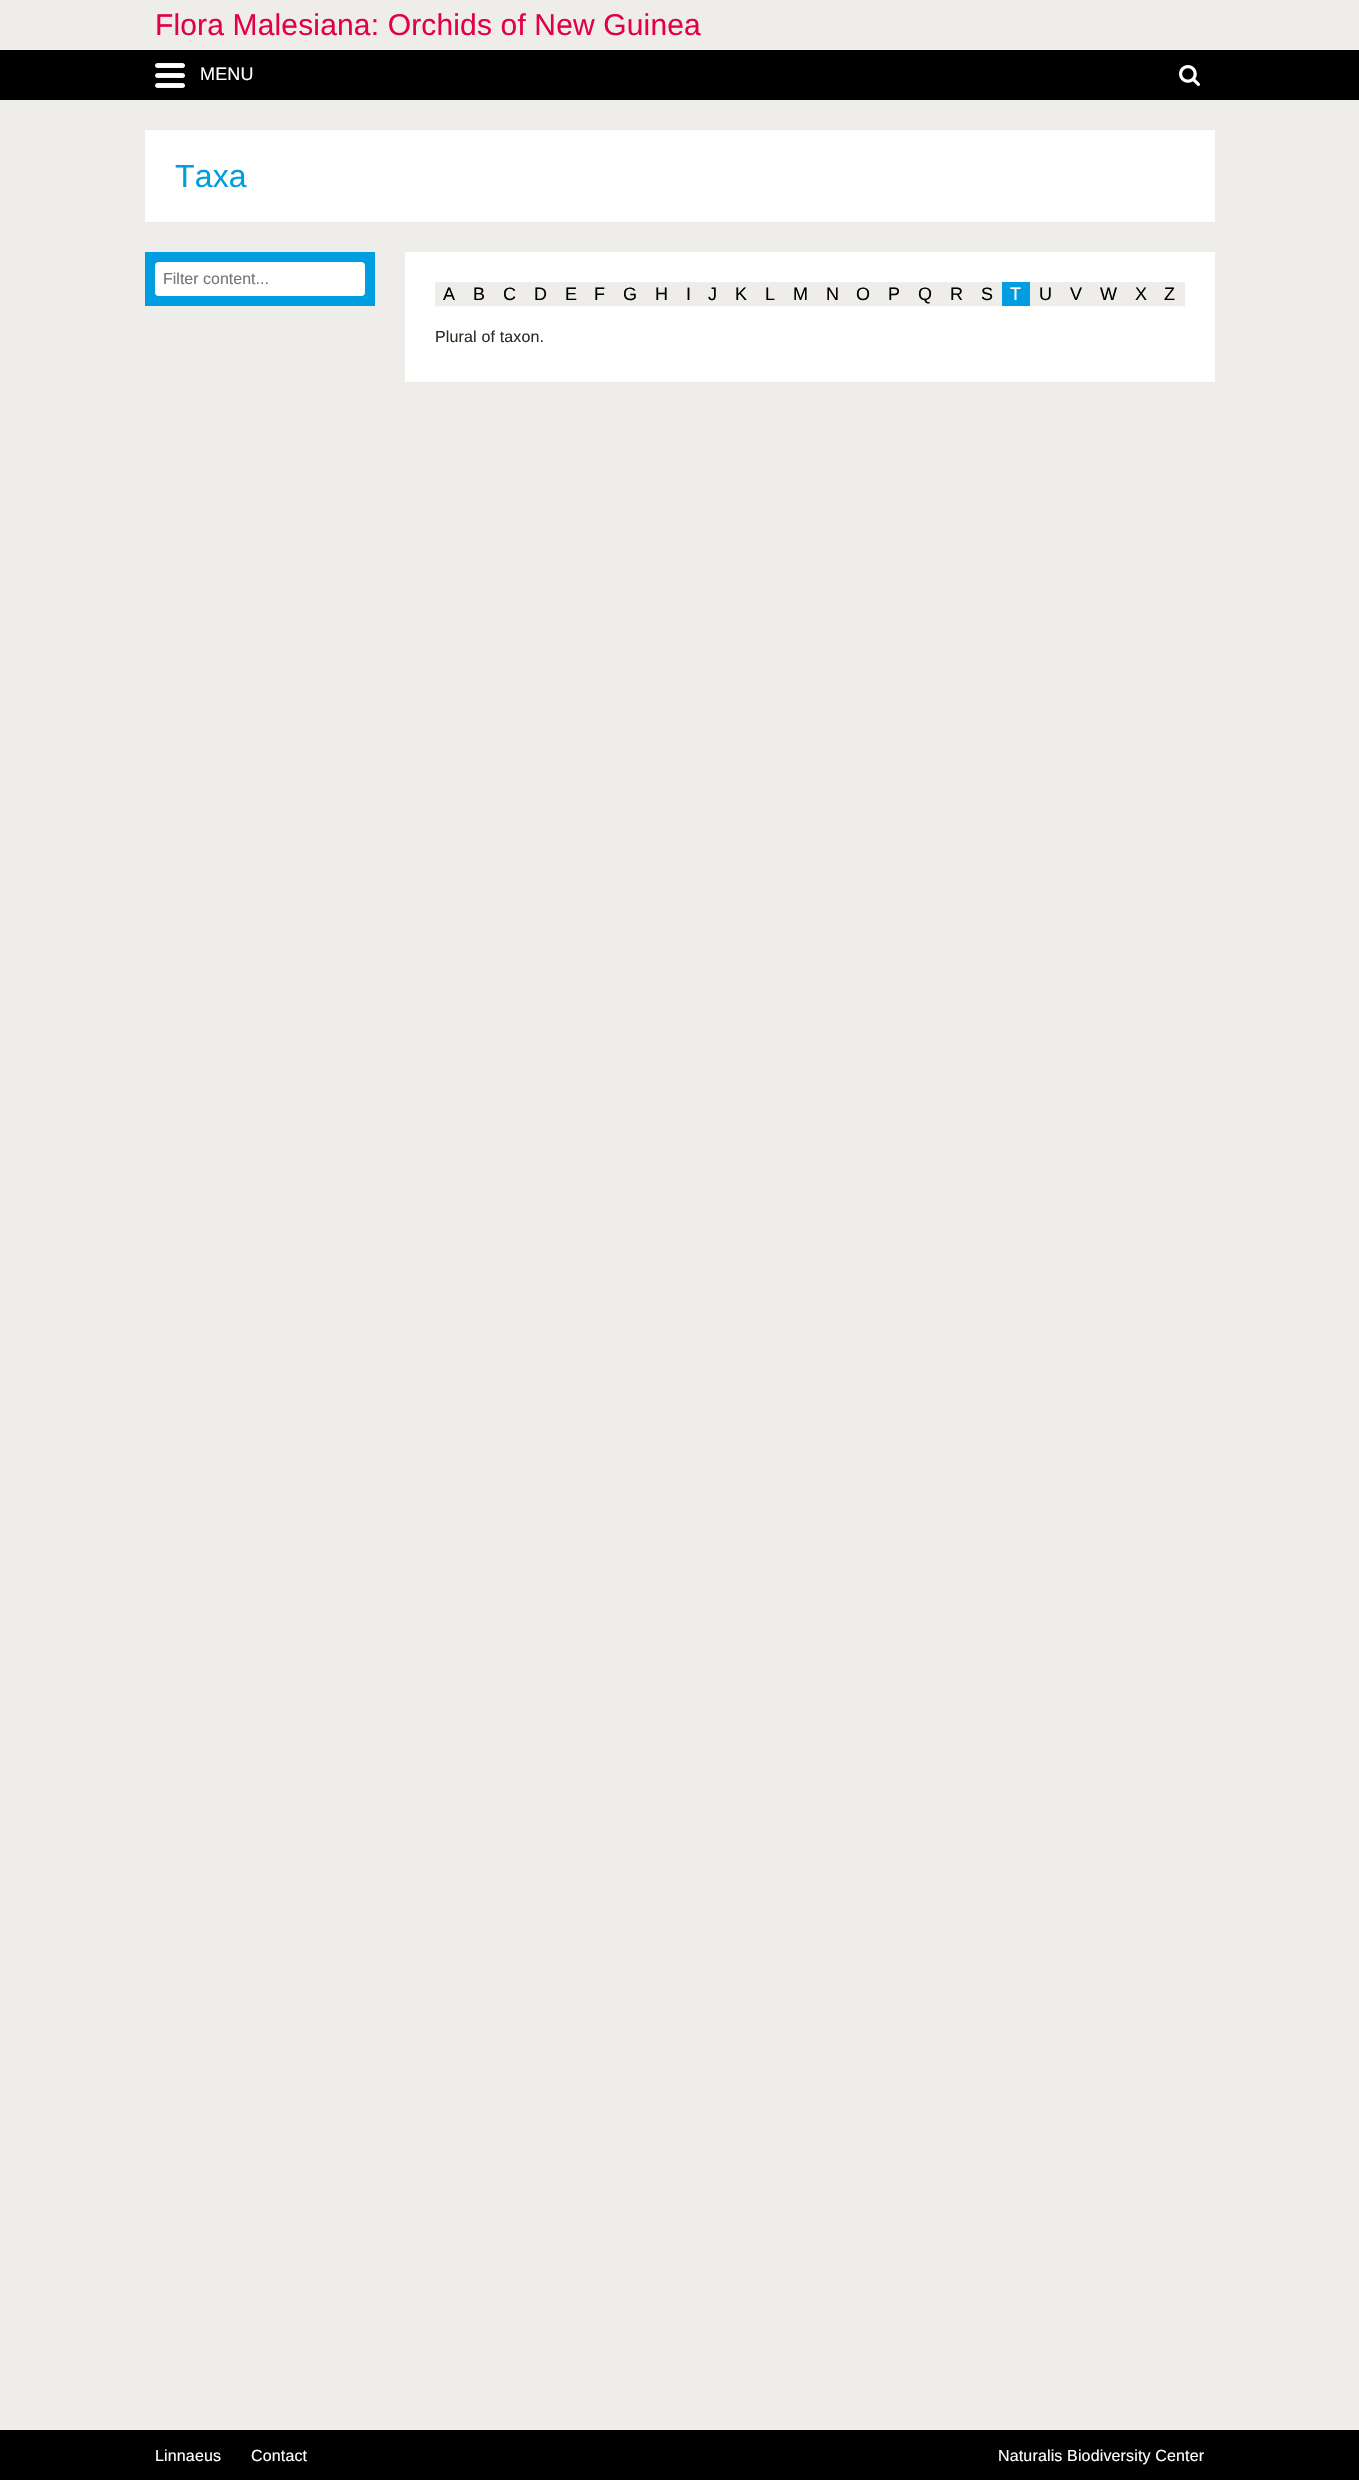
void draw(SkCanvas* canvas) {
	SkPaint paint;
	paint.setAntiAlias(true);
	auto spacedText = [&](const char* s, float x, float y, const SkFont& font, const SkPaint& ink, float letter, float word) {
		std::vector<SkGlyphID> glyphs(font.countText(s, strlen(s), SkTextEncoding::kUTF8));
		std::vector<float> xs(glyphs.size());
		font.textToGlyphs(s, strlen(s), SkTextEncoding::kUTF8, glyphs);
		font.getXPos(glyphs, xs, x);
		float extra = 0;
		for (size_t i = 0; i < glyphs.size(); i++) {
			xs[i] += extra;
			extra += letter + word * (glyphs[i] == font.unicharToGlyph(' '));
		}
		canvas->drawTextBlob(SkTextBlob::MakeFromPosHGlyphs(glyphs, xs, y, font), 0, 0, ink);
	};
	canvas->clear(0xffeeede9);
	SkFont f1(fontMgr->matchFamilyStyle("Liberation Sans", SkFontStyle::Normal()), 30);
	f1.setSubpixel(true);
	paint.setColor(0xffe3004a);
	spacedText("Flora Malesiana: Orchids of New Guinea", 155, 35, f1, paint, 0.15, 0);
	paint.setColor(0xff000000);
	canvas->drawRect(SkRect::MakeXYWH(0, 50, 1359, 50), paint);
	canvas->drawImageRect(SkImages::DeferredFromEncodedData(SkData::MakeFromFileName("img1.png")), SkRect::MakeXYWH(155, 63, 30, 25), SkSamplingOptions());
	SkFont f2(fontMgr->matchFamilyStyle("Liberation Sans", SkFontStyle::Normal()), 18);
	f2.setSubpixel(true);
	paint.setColor(0xffffffff);
	spacedText("MENU", 200, 80, f2, paint, 0.15, 0);
	canvas->drawImageRect(SkImages::DeferredFromEncodedData(SkData::MakeFromFileName("img2.png")), SkRect::MakeXYWH(1179, 65, 21, 21), SkSamplingOptions());
	canvas->drawRect(SkRect::MakeXYWH(145, 130, 1070, 92), paint);
	SkFont f3(fontMgr->matchFamilyStyle("Liberation Sans", SkFontStyle::Normal()), 32);
	f3.setSubpixel(true);
	paint.setColor(0xff009ee0);
	spacedText("Taxa", 175, 187, f3, paint, 0.15, 0);
	canvas->drawRect(SkRect::MakeXYWH(145, 252, 230, 54), paint);
	paint.setColor(0xffffffff);
	canvas->drawRoundRect(SkRect::MakeXYWH(155, 262, 210, 34), 4, 4, paint);
	SkFont f4(fontMgr->matchFamilyStyle("Liberation Sans", SkFontStyle::Normal()), 16);
	f4.setSubpixel(true);
	paint.setColor(0xff757575);
	canvas->drawString("Filter content...", 163, 284, f4, paint);
	paint.setColor(0xffffffff);
	canvas->drawRect(SkRect::MakeXYWH(405, 252, 810, 130), paint);
	paint.setColor(0xffeeede9);
	canvas->drawRect(SkRect::MakeXYWH(435, 282, 750, 25), paint);
	paint.setColor(0xfff9f9f7);
	canvas->drawRect(SkRect::MakeXYWH(435, 306, 749, 1), paint);
	paint.setColor(0xff000000);
	spacedText("A", 443, 300, f2, paint, 0.15, 0);
	spacedText("B", 473, 300, f2, paint, 0.15, 0);
	spacedText("C", 503, 300, f2, paint, 0.15, 0);
	spacedText("D", 534, 300, f2, paint, 0.15, 0);
	spacedText("E", 565, 300, f2, paint, 0.15, 0);
	spacedText("F", 594, 300, f2, paint, 0.15, 0);
	spacedText("G", 623, 300, f2, paint, 0.15, 0);
	spacedText("H", 655, 300, f2, paint, 0.15, 0);
	spacedText("I", 686, 300, f2, paint, 0.15, 0);
	spacedText("J", 708, 300, f2, paint, 0.15, 0);
	spacedText("K", 735, 300, f2, paint, 0.15, 0);
	spacedText("L", 765, 300, f2, paint, 0.15, 0);
	spacedText("M", 793, 300, f2, paint, 0.15, 0);
	spacedText("N", 826, 300, f2, paint, 0.15, 0);
	spacedText("O", 856, 300, f2, paint, 0.15, 0);
	spacedText("P", 888, 300, f2, paint, 0.15, 0);
	spacedText("Q", 918, 300, f2, paint, 0.15, 0);
	spacedText("R", 950, 300, f2, paint, 0.15, 0);
	spacedText("S", 981, 300, f2, paint, 0.15, 0);
	paint.setColor(0xff009ee0);
	canvas->drawRect(SkRect::MakeXYWH(1002, 282, 28, 24), paint);
	paint.setColor(0xffffffff);
	spacedText("T", 1010, 300, f2, paint, 0.15, 0);
	paint.setColor(0xff000000);
	spacedText("U", 1039, 300, f2, paint, 0.15, 0);
	spacedText("V", 1070, 300, f2, paint, 0.15, 0);
	spacedText("W", 1100, 300, f2, paint, 0.15, 0);
	spacedText("X", 1135, 300, f2, paint, 0.15, 0);
	spacedText("Z", 1164, 300, f2, paint, 0.15, 0);
	paint.setColor(0xff302c22);
	spacedText("Plural of taxon.", 435, 342, f4, paint, 0.15, 0);
	paint.setColor(0xff000000);
	canvas->drawRect(SkRect::MakeXYWH(0, 2430, 1359, 50), paint);
	paint.setColor(0xffffffff);
	spacedText("Linnaeus", 155, 2461, f4, paint, 0.15, 0);
	spacedText("Contact", 251, 2461, f4, paint, 0.15, 0);
	spacedText("Naturalis Biodiversity Center", 998, 2461, f4, paint, 0.15, 0);
}
